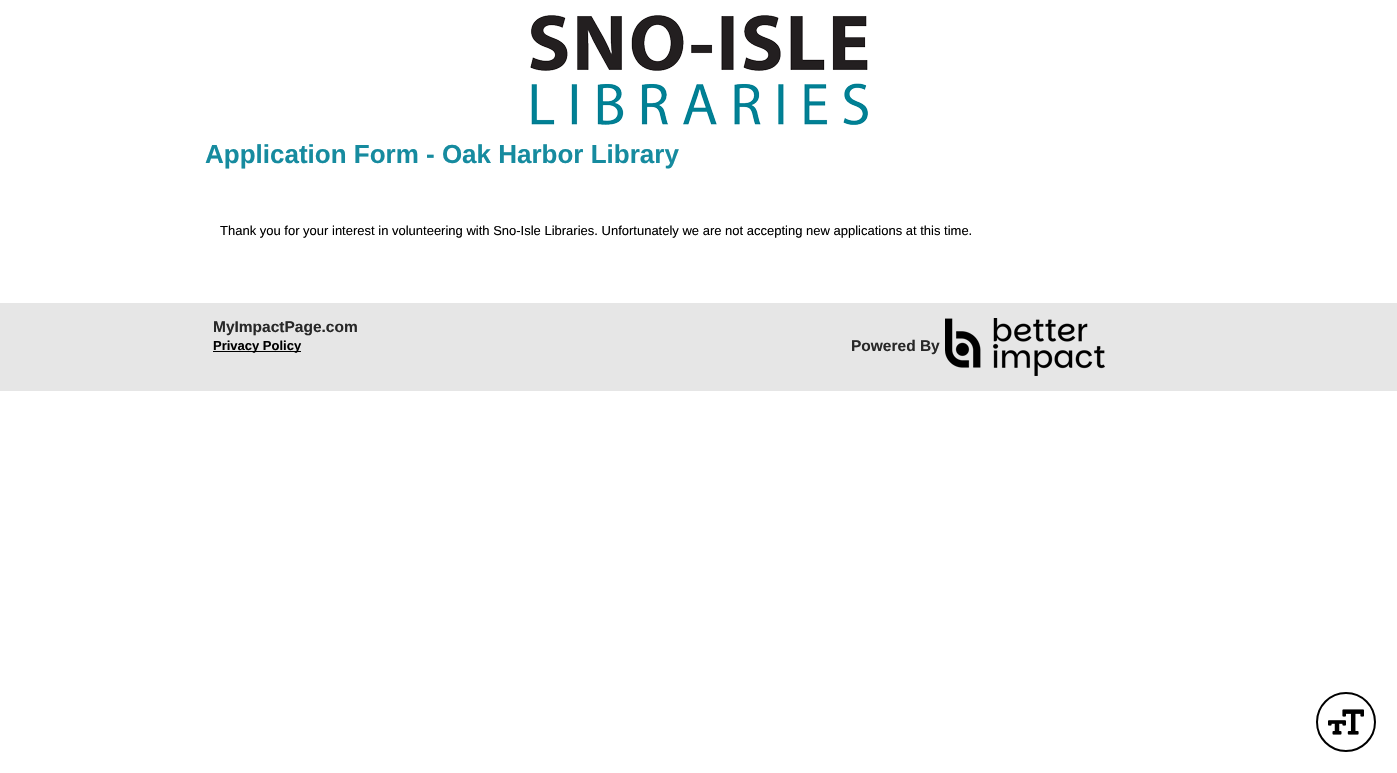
void draw(SkCanvas* canvas) {
	SkPaint paint;
	paint.setAntiAlias(true);
	canvas->clear(0xffffffff);
	canvas->drawImageRect(SkImages::DeferredFromEncodedData(SkData::MakeFromFileName("img1.png")), SkRect::MakeXYWH(530, 15, 338, 110), SkSamplingOptions());
	SkFont f1(fontMgr->matchFamilyStyle("Liberation Sans", SkFontStyle::Bold()), 26);
	f1.setSubpixel(true);
	paint.setColor(0xff168b9f);
	canvas->drawString("Application Form - Oak Harbor Library", 205, 163, f1, paint);
	SkFont f2(fontMgr->matchFamilyStyle("Liberation Sans", SkFontStyle::Normal()), 13);
	f2.setSubpixel(true);
	paint.setColor(0xff000000);
	canvas->drawString("Thank you for your interest in volunteering with Sno-Isle Libraries. Unfortunately we are not accepting new applications at this time.", 220, 235, f2, paint);
	paint.setColor(0xffe6e6e6);
	canvas->drawRect(SkRect::MakeXYWH(0, 303, 1397, 88), paint);
	SkFont f3(fontMgr->matchFamilyStyle("Liberation Sans", SkFontStyle::Bold()), 15.5);
	f3.setSubpixel(true);
	paint.setColor(0xff282828);
	canvas->drawString("MyImpactPage.com", 213, 332, f3, paint);
	paint.setColor(0xff000000);
	canvas->drawRect(SkRect::MakeXYWH(213, 351, 88, 1), paint);
	SkFont f4(fontMgr->matchFamilyStyle("Liberation Sans", SkFontStyle::Bold()), 13);
	f4.setSubpixel(true);
	canvas->drawString("Privacy Policy", 213, 350, f4, paint);
	paint.setColor(0xff282828);
	canvas->drawString("Powered By", 851, 351, f3, paint);
	canvas->drawImageRect(SkImages::DeferredFromEncodedData(SkData::MakeFromFileName("img2.png")), SkRect::MakeXYWH(945, 318, 160, 58), SkSamplingOptions());
	paint.setStroke(true);
	paint.setStrokeWidth(2);
	paint.setColor(0xff000000);
	canvas->drawCircle(1346, 722, 29, paint);
	canvas->drawImageRect(SkImages::DeferredFromEncodedData(SkData::MakeFromFileName("img3.png")), SkRect::MakeXYWH(1328, 709, 36, 26), SkSamplingOptions());
}
